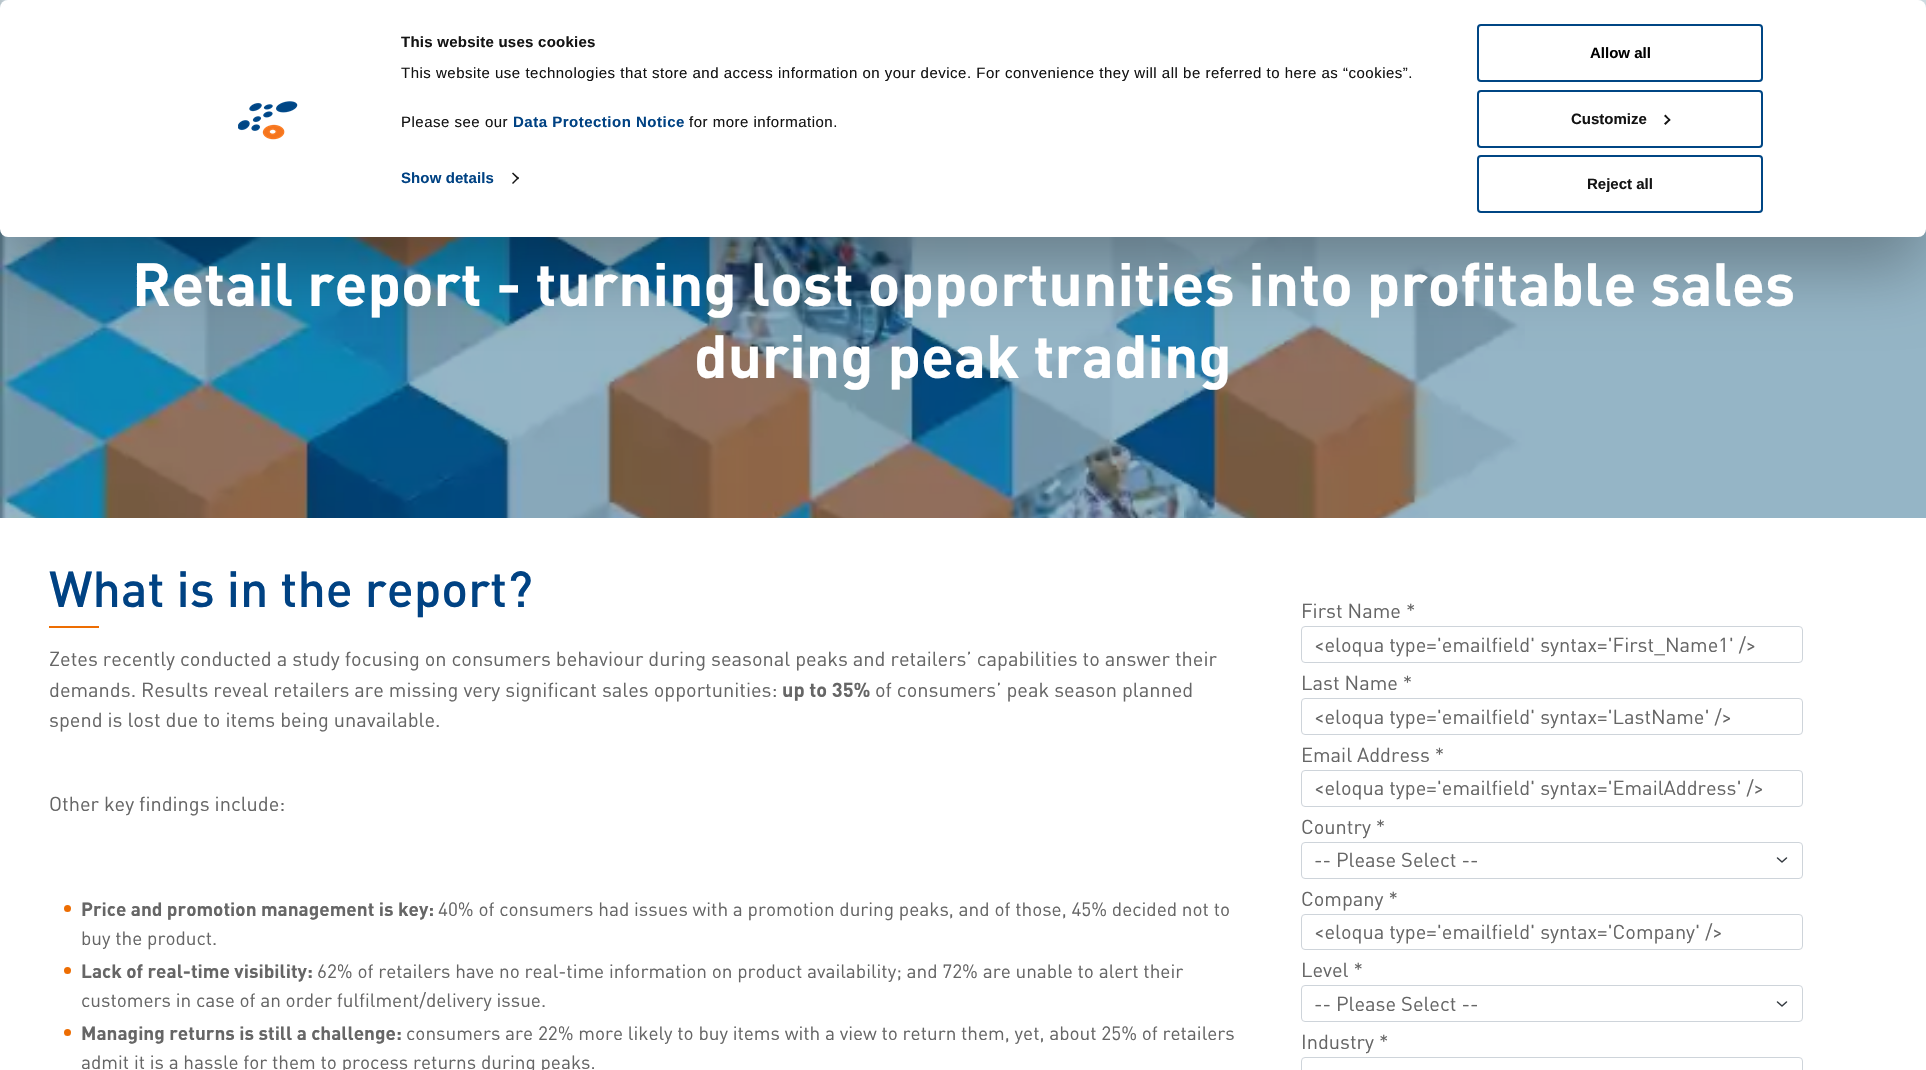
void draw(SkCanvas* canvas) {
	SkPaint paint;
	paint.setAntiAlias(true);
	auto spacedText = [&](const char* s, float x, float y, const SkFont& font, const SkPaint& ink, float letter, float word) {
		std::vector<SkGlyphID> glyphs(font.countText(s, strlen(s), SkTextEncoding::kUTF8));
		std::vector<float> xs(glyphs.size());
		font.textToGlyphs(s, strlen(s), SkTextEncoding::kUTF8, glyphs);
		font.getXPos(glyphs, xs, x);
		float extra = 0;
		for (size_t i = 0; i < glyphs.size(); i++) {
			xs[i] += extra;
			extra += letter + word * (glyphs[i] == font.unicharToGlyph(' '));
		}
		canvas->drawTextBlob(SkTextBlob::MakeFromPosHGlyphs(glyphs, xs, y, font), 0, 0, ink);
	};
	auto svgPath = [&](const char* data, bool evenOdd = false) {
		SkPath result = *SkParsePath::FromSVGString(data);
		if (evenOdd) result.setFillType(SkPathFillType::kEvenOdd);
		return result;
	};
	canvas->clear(0xffffffff);
	paint.setColor(0xff95b5c6);
	canvas->drawRect(SkRect::MakeXYWH(1525, 0, 401, 518), paint);
	canvas->drawImageRect(SkImages::DeferredFromEncodedData(SkData::MakeFromFileName("img2.png")), SkRect::MakeXYWH(0, 0, 1525, 518), SkSamplingOptions());
	paint.setColor(0x99ffffff);
	canvas->drawRect(SkRect::MakeXYWH(0, 0, 1926, 8), paint);
	paint.setColor(0x4d000000);
	paint.setMaskFilter(SkMaskFilter::MakeBlur(kNormal_SkBlurStyle, 35));
	canvas->drawRoundRect(SkRect::MakeXYWH(0, 30, 1926, 237), 8, 8, paint);
	paint.setMaskFilter(nullptr);
	paint.setColor(0xffffffff);
	canvas->drawRoundRect(SkRect::MakeXYWH(0, 0, 1926, 237), 8, 8, paint);
	canvas->drawImageRect(SkImages::DeferredFromEncodedData(SkData::MakeFromFileName("img1.png")), SkRect::MakeXYWH(238, 101, 60, 39), SkSamplingOptions());
	SkFont f1(fontMgr->matchFamilyStyle("Liberation Sans", SkFontStyle::Bold()), 15);
	f1.setSubpixel(true);
	paint.setColor(0xff141414);
	spacedText("This website uses cookies", 401, 47, f1, paint, 0.25, 0);
	SkFont f2(fontMgr->matchFamilyStyle("Liberation Sans", SkFontStyle::Normal()), 15);
	f2.setSubpixel(true);
	spacedText("This website use technologies that store and access information on your device. For convenience they will all be referred to here as “cookies”.", 401, 78, f2, paint, 0.5, 0);
	spacedText("Please see our", 401, 127, f2, paint, 0.5, 0);
	paint.setColor(0xff004283);
	spacedText("Data Protection Notice", 513, 127, f1, paint, 0.5, 0);
	paint.setColor(0xff141414);
	spacedText("for more information.", 689, 127, f2, paint, 0.5, 0);
	paint.setColor(0xff004283);
	spacedText("Show details", 401, 183, f1, paint, 0.1, 0);
	paint.setColor(0xff141414);
	canvas->drawPath(svgPath("M513 172.5L519 178L518 179.5L512 173.5Z"), paint);
	canvas->drawPath(svgPath("M518 177L519 178L513 184L512 183Z"), paint);
	paint.setStroke(true);
	paint.setStrokeWidth(2);
	paint.setColor(0xff004684);
	canvas->drawRoundRect(SkRect::MakeXYWH(1478, 25, 284, 56), 3, 3, paint);
	paint.setStroke(false);
	paint.setColor(0xff000000);
	canvas->drawString("Allow all", 1590, 58, f1, paint);
	paint.setStroke(true);
	paint.setColor(0xff004684);
	canvas->drawRoundRect(SkRect::MakeXYWH(1478, 91, 284, 56), 3, 3, paint);
	paint.setStroke(false);
	paint.setColor(0xff141414);
	canvas->drawString("Customize", 1571, 124, f1, paint);
	canvas->drawPath(svgPath("M1665.5 114.5L1670.5 120L1669.5 121L1664 116Z"), paint);
	canvas->drawPath(svgPath("M1669.5 118.5L1670.5 120L1665.5 125L1664 123.5Z"), paint);
	paint.setStroke(true);
	paint.setColor(0xff004684);
	canvas->drawRoundRect(SkRect::MakeXYWH(1478, 156, 284, 56), 3, 3, paint);
	paint.setStroke(false);
	paint.setColor(0xff141414);
	canvas->drawString("Reject all", 1587, 189, f1, paint);
	SkFont f3(fontMgr->matchFamilyStyle("DIN", SkFontStyle::Bold()), 60);
	f3.setSubpixel(true);
	paint.setColor(0xffffffff);
	canvas->drawString("Retail report - turning lost opportunities into profitable sales", 132, 306, f3, paint);
	canvas->drawString("during peak trading", 694, 378, f3, paint);
	SkFont f4(fontMgr->matchFamilyStyle("DIN", SkFontStyle(500, SkFontStyle::kNormal_Width, SkFontStyle::kUpright_Slant)), 50);
	f4.setSubpixel(true);
	paint.setColor(0xff004283);
	canvas->drawString("What is in the report?", 49, 607, f4, paint);
	paint.setColor(0xffed6d02);
	canvas->drawRect(SkRect::MakeXYWH(49, 626, 50, 2), paint);
	SkFont f5(fontMgr->matchFamilyStyle("DIN", SkFontStyle::Normal()), 20);
	f5.setSubpixel(true);
	paint.setColor(0xff666666);
	canvas->drawString("Zetes recently conducted a study focusing on consumers behaviour during seasonal peaks and retailers’ capabilities to answer their", 49, 666, f5, paint);
	canvas->drawString("demands. Results reveal retailers are missing very significant sales opportunities:", 49, 697, f5, paint);
	SkFont f6(fontMgr->matchFamilyStyle("DIN", SkFontStyle::Bold()), 20);
	f6.setSubpixel(true);
	canvas->drawString("up to 35%", 782, 697, f6, paint);
	canvas->drawString("of consumers’ peak season planned", 875, 697, f5, paint);
	canvas->drawString("spend is lost due to items being unavailable.", 49, 727, f5, paint);
	canvas->drawString("Other key findings include:", 49, 811, f5, paint);
	paint.setColor(0xffed6d02);
	canvas->drawCircle(67.5, 908.5, 3.5, paint);
	SkFont f7(fontMgr->matchFamilyStyle("DIN", SkFontStyle::Bold()), 19);
	f7.setSubpixel(true);
	paint.setColor(0xff666666);
	canvas->drawString("Price and promotion management is key:", 81, 916, f7, paint);
	SkFont f8(fontMgr->matchFamilyStyle("DIN", SkFontStyle::Normal()), 19);
	f8.setSubpixel(true);
	canvas->drawString("40% of consumers had issues with a promotion during peaks, and of those, 45% decided not to", 438, 916, f8, paint);
	canvas->drawString("buy the product.", 81, 945, f8, paint);
	paint.setColor(0xffed6d02);
	canvas->drawCircle(67.5, 970.5, 3.5, paint);
	paint.setColor(0xff666666);
	canvas->drawString("Lack of real-time visibility:", 81, 978, f7, paint);
	canvas->drawString("62% of retailers have no real-time information on product availability; and 72% are unable to alert their", 317, 978, f8, paint);
	canvas->drawString("customers in case of an order fulfilment/delivery issue.", 81, 1007, f8, paint);
	paint.setColor(0xffed6d02);
	canvas->drawCircle(67.5, 1032.5, 3.5, paint);
	paint.setColor(0xff666666);
	canvas->drawString("Managing returns is still a challenge:", 81, 1040, f7, paint);
	canvas->drawString("consumers are 22% more likely to buy items with a view to return them, yet, about 25% of retailers", 406, 1040, f8, paint);
	canvas->drawString("admit it is a hassle for them to process returns during peaks.", 81, 1069, f8, paint);
	canvas->drawString("First Name *", 1301, 618, f5, paint);
	paint.setStroke(true);
	paint.setStrokeWidth(1);
	paint.setColor(0xffced4da);
	canvas->drawRoundRect(SkRect::MakeXYWH(1301.5, 626.5, 501, 36), 3.5, 3.5, paint);
	paint.setStroke(false);
	paint.setColor(0xff666666);
	canvas->drawString("<eloqua type='emailfield' syntax='First_Name1' />", 1314, 652, f5, paint);
	canvas->drawString("Last Name *", 1301, 690, f5, paint);
	paint.setStroke(true);
	paint.setColor(0xffced4da);
	canvas->drawRoundRect(SkRect::MakeXYWH(1301.5, 698.5, 501, 36), 3.5, 3.5, paint);
	paint.setStroke(false);
	paint.setColor(0xff666666);
	canvas->drawString("<eloqua type='emailfield' syntax='LastName' />", 1314, 724, f5, paint);
	canvas->drawString("Email Address *", 1301, 762, f5, paint);
	paint.setStroke(true);
	paint.setColor(0xffced4da);
	canvas->drawRoundRect(SkRect::MakeXYWH(1301.5, 770.5, 501, 36), 3.5, 3.5, paint);
	paint.setStroke(false);
	paint.setColor(0xff666666);
	canvas->drawString("<eloqua type='emailfield' syntax='EmailAddress' />", 1314, 795, f5, paint);
	canvas->drawString("Country *", 1301, 834, f5, paint);
	paint.setStroke(true);
	paint.setStrokeWidth(1.5);
	paint.setStrokeCap(SkPaint::kRound_Cap);
	paint.setStrokeJoin(SkPaint::kRound_Join);
	paint.setColor(0xff343a40);
	canvas->drawPath(svgPath("M1777.5 858L1782 862L1786.5 858"), paint);
	paint.setStrokeWidth(1);
	paint.setStrokeCap(SkPaint::kButt_Cap);
	paint.setStrokeJoin(SkPaint::kMiter_Join);
	paint.setColor(0xffced4da);
	canvas->drawRoundRect(SkRect::MakeXYWH(1301.5, 842.5, 501, 36), 3.5, 3.5, paint);
	paint.setStroke(false);
	paint.setColor(0xff666666);
	canvas->drawString("-- Please Select --", 1314, 867, f5, paint);
	canvas->drawString("Company *", 1301, 906, f5, paint);
	paint.setStroke(true);
	paint.setColor(0xffced4da);
	canvas->drawRoundRect(SkRect::MakeXYWH(1301.5, 914.5, 501, 35), 3.5, 3.5, paint);
	paint.setStroke(false);
	paint.setColor(0xff666666);
	canvas->drawString("<eloqua type='emailfield' syntax='Company' />", 1314, 939, f5, paint);
	canvas->drawString("Level *", 1301, 977, f5, paint);
	paint.setStroke(true);
	paint.setStrokeWidth(1.5);
	paint.setStrokeCap(SkPaint::kRound_Cap);
	paint.setStrokeJoin(SkPaint::kRound_Join);
	paint.setColor(0xff343a40);
	canvas->drawPath(svgPath("M1777.5 1002L1782 1006L1786.5 1002"), paint);
	paint.setStrokeWidth(1);
	paint.setStrokeCap(SkPaint::kButt_Cap);
	paint.setStrokeJoin(SkPaint::kMiter_Join);
	paint.setColor(0xffced4da);
	canvas->drawRoundRect(SkRect::MakeXYWH(1301.5, 985.5, 501, 36), 3.5, 3.5, paint);
	paint.setStroke(false);
	paint.setColor(0xff666666);
	canvas->drawString("-- Please Select --", 1314, 1011, f5, paint);
	canvas->drawString("Industry *", 1301, 1049, f5, paint);
	paint.setStroke(true);
	paint.setColor(0xffced4da);
	canvas->drawRoundRect(SkRect::MakeXYWH(1301.5, 1057.5, 501, 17), 3.5, 3.5, paint);
}
